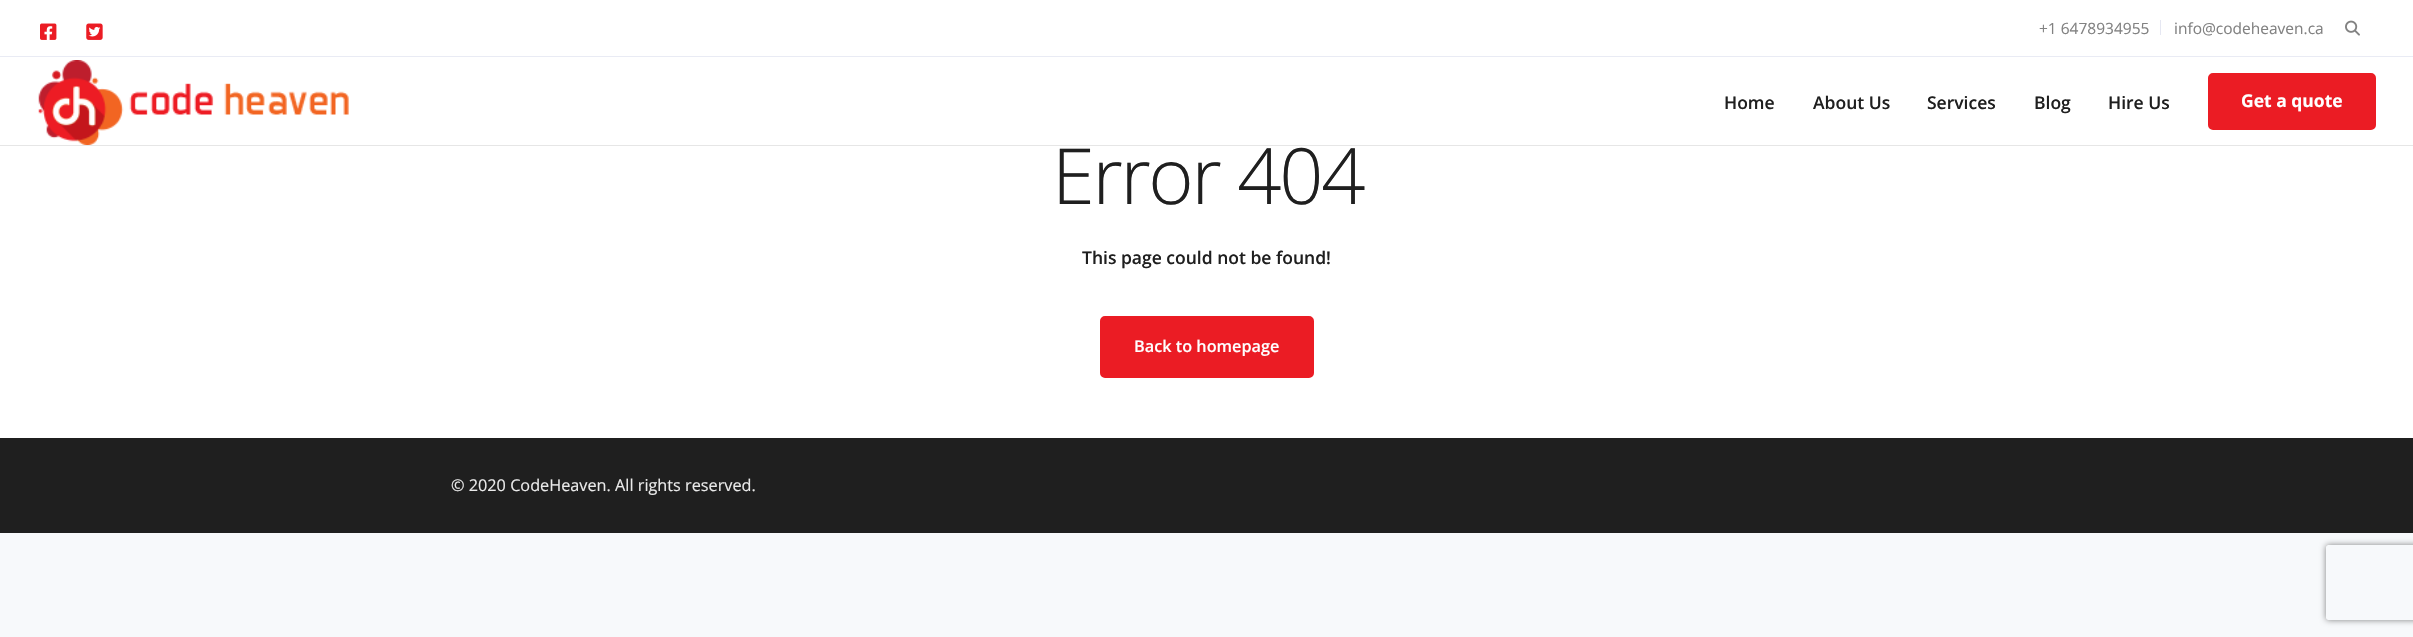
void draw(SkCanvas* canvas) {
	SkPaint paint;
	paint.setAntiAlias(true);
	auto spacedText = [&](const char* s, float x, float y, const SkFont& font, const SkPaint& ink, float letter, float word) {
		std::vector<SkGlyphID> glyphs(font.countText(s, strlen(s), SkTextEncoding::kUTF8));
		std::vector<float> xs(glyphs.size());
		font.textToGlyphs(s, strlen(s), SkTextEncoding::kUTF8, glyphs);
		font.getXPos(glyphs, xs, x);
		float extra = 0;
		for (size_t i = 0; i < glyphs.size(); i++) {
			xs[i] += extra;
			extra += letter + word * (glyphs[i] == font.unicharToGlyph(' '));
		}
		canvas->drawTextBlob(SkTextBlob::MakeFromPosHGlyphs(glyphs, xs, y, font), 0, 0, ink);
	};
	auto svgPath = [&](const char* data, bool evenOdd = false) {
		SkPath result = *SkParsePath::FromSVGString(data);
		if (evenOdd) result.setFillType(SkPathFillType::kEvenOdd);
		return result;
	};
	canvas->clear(0xfff7f9fb);
	paint.setColor(0xffffffff);
	canvas->drawRect(SkRect::MakeXYWH(0, 0, 2413, 438), paint);
	paint.setColor(0xffe6e6e6);
	canvas->drawRect(SkRect::MakeXYWH(0, 145, 2413, 1), paint);
	paint.setColor(0xffe9ebf4);
	canvas->drawRect(SkRect::MakeXYWH(0, 56, 2413, 1), paint);
	canvas->drawImageRect(SkImages::DeferredFromEncodedData(SkData::MakeFromFileName("img1.png")), SkRect::MakeXYWH(40, 23, 17, 17), SkSamplingOptions());
	canvas->drawImageRect(SkImages::DeferredFromEncodedData(SkData::MakeFromFileName("img2.png")), SkRect::MakeXYWH(86, 23, 17, 17), SkSamplingOptions());
	SkFont f1(fontMgr->matchFamilyStyle("Open Sans", SkFontStyle::Normal()), 15.5);
	f1.setSubpixel(true);
	paint.setColor(0xff828282);
	canvas->drawString("+1 6478934955", 2039, 34, f1, paint);
	paint.setColor(0xffe5e7f2);
	canvas->drawRect(SkRect::MakeXYWH(2160, 20, 1, 15), paint);
	paint.setColor(0xff828282);
	canvas->drawString("info@codeheaven.ca", 2174, 34, f1, paint);
	canvas->drawImageRect(SkImages::DeferredFromEncodedData(SkData::MakeFromFileName("img3.png")), SkRect::MakeXYWH(2345, 20, 15, 16), SkSamplingOptions());
	canvas->drawImageRect(SkImages::DeferredFromEncodedData(SkData::MakeFromFileName("img4.png")), SkRect::MakeXYWH(38, 60, 311, 85), SkSamplingOptions());
	SkFont f2(fontMgr->matchFamilyStyle("Open Sans", SkFontStyle(600, SkFontStyle::kNormal_Width, SkFontStyle::kUpright_Slant)), 17.5);
	f2.setSubpixel(true);
	paint.setColor(0xff1f1f1f);
	canvas->drawString("Home", 1724, 109, f2, paint);
	canvas->drawString("About Us", 1813, 109, f2, paint);
	canvas->drawString("Services", 1927, 109, f2, paint);
	canvas->drawString("Blog", 2034, 109, f2, paint);
	canvas->drawString("Hire Us", 2108, 109, f2, paint);
	paint.setColor(0xffeb1c24);
	canvas->drawRoundRect(SkRect::MakeXYWH(2209.5, 74.5, 165, 54), 3.5, 3.5, paint);
	paint.setStroke(true);
	paint.setStrokeWidth(3);
	canvas->drawRoundRect(SkRect::MakeXYWH(2209.5, 74.5, 165, 54), 3.5, 3.5, paint);
	SkFont f3(fontMgr->matchFamilyStyle("Open Sans", SkFontStyle::Bold()), 17.5);
	f3.setSubpixel(true);
	paint.setStroke(false);
	paint.setColor(0xffffffff);
	canvas->drawString("Get a quote", 2241, 107, f3, paint);
	SkFont f4(fontMgr->matchFamilyStyle("Open Sans", SkFontStyle(300, SkFontStyle::kNormal_Width, SkFontStyle::kUpright_Slant)), 77.5);
	f4.setSubpixel(true);
	paint.setColor(0xff1f1f1f);
	spacedText("Error 404", 1052, 204, f4, paint, -2.25, 0);
	canvas->drawString("This page could not be found!", 1082, 264, f2, paint);
	paint.setColor(0xffeb1c24);
	canvas->drawRoundRect(SkRect::MakeXYWH(1101.5, 317.5, 211, 59), 3.5, 3.5, paint);
	paint.setStroke(true);
	canvas->drawRoundRect(SkRect::MakeXYWH(1101.5, 317.5, 211, 59), 3.5, 3.5, paint);
	SkFont f5(fontMgr->matchFamilyStyle("Open Sans", SkFontStyle(600, SkFontStyle::kNormal_Width, SkFontStyle::kUpright_Slant)), 16.25);
	f5.setSubpixel(true);
	paint.setStroke(false);
	paint.setColor(0xffffffff);
	canvas->drawString("Back to homepage", 1134, 352, f5, paint);
	paint.setColor(0xff1f1f1f);
	canvas->drawRect(SkRect::MakeXYWH(0, 438, 2413, 95), paint);
	SkFont f6(fontMgr->matchFamilyStyle("Open Sans", SkFontStyle::Normal()), 16.25);
	f6.setSubpixel(true);
	paint.setColor(0xffeaeaea);
	canvas->drawString("© 2020 CodeHeaven. All rights reserved.", 451, 491, f6, paint);
	canvas->save();
	canvas->clipPath(svgPath("M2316 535H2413V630H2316ZM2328.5 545H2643.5C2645 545 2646 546 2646 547.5V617.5C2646 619 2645 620 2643.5 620H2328.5C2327 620 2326 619 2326 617.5V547.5C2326 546 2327 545 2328.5 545Z", true), true);
	paint.setColor(0xff808080);
	paint.setMaskFilter(SkMaskFilter::MakeBlur(kNormal_SkBlurStyle, 3));
	canvas->drawRoundRect(SkRect::MakeXYWH(2326, 545, 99, 75), 2.5, 2.5, paint);
	paint.setMaskFilter(nullptr);
	canvas->restore();
}
